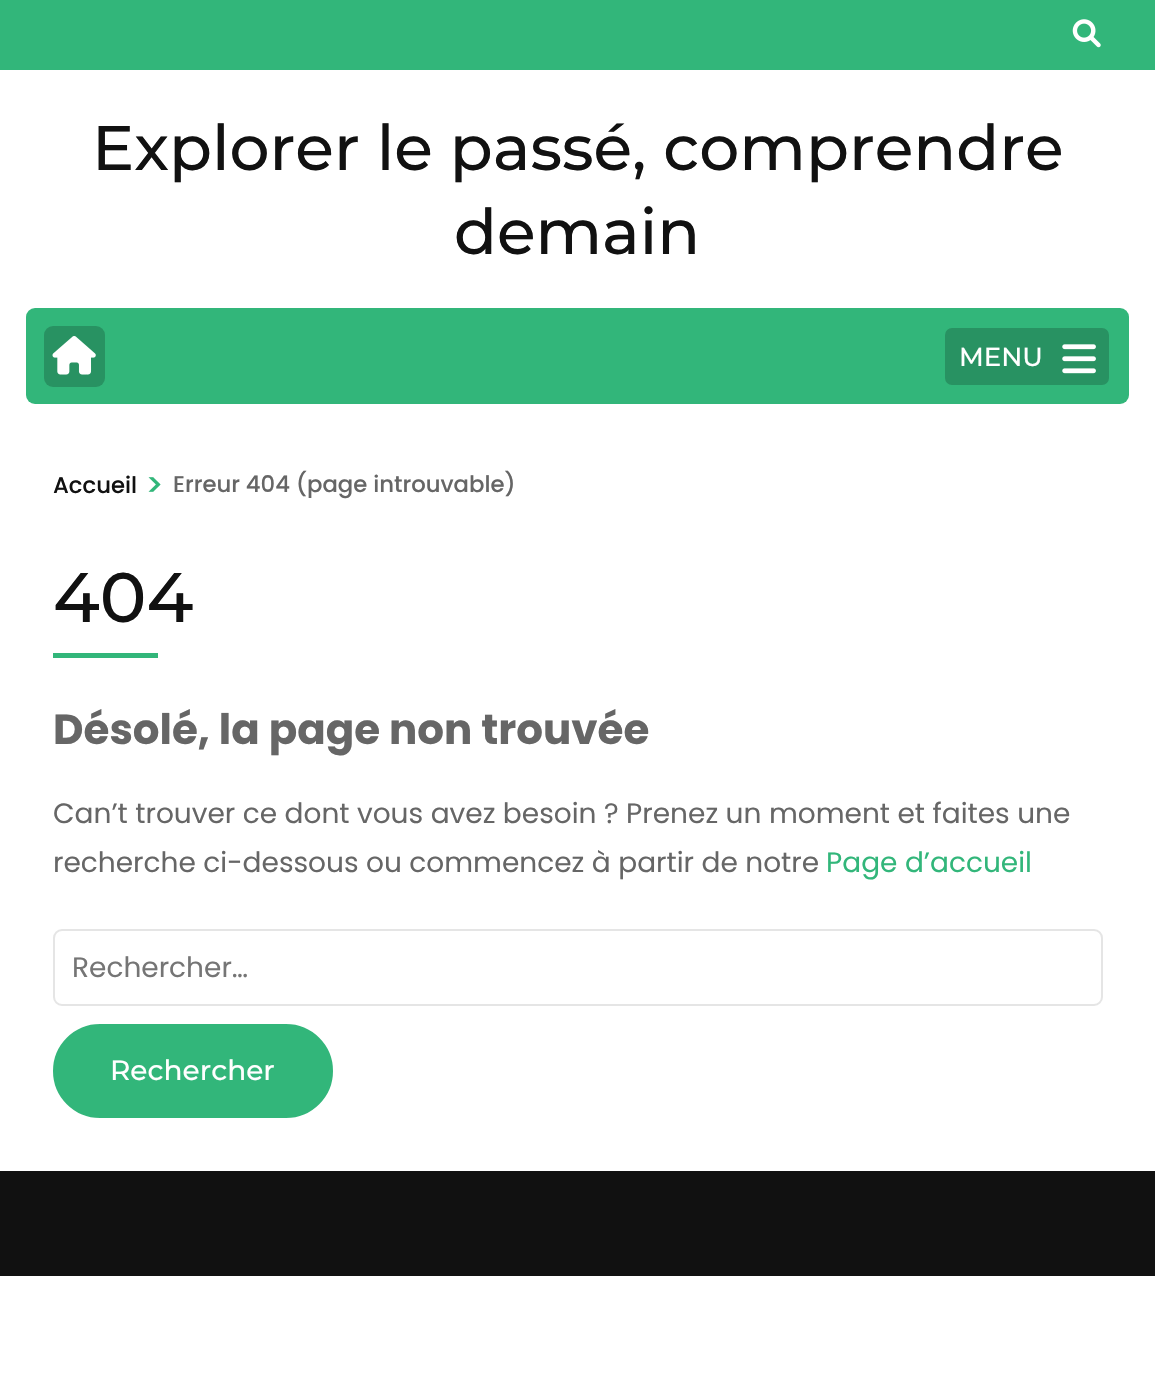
void draw(SkCanvas* canvas) {
	SkPaint paint;
	paint.setAntiAlias(true);
	canvas->clear(0xffffffff);
	paint.setColor(0xff32b67a);
	canvas->drawRect(SkRect::MakeXYWH(0, 0, 1155, 70), paint);
	canvas->drawImageRect(SkImages::DeferredFromEncodedData(SkData::MakeFromFileName("img1.png")), SkRect::MakeXYWH(1072, 19, 29, 29), SkSamplingOptions());
	SkFont f1(fontMgr->matchFamilyStyle("Montserrat", SkFontStyle(500, SkFontStyle::kNormal_Width, SkFontStyle::kUpright_Slant)), 63);
	f1.setSubpixel(true);
	paint.setColor(0xff111111);
	canvas->drawString("Explorer le passé, comprendre", 92, 170, f1, paint);
	canvas->drawString("demain", 454, 254, f1, paint);
	paint.setColor(0xff32b67a);
	canvas->drawRoundRect(SkRect::MakeXYWH(26, 308, 1103, 96), 9, 9, paint);
	paint.setColor(0xff289262);
	canvas->drawRoundRect(SkRect::MakeXYWH(44, 326, 61, 61), 9, 9, paint);
	canvas->drawImageRect(SkImages::DeferredFromEncodedData(SkData::MakeFromFileName("img2.png")), SkRect::MakeXYWH(52, 336, 44, 39), SkSamplingOptions());
	canvas->drawRoundRect(SkRect::MakeXYWH(944, 327, 166, 59), 8, 8, paint);
	paint.setStroke(true);
	paint.setStrokeWidth(2);
	paint.setColor(0xff32b67a);
	canvas->drawRoundRect(SkRect::MakeXYWH(944, 327, 166, 59), 8, 8, paint);
	SkFont f2(fontMgr->matchFamilyStyle("Montserrat", SkFontStyle(500, SkFontStyle::kNormal_Width, SkFontStyle::kUpright_Slant)), 26);
	f2.setSubpixel(true);
	paint.setStroke(false);
	paint.setColor(0xffffffff);
	canvas->drawString("MENU", 959, 366, f2, paint);
	canvas->drawImageRect(SkImages::DeferredFromEncodedData(SkData::MakeFromFileName("img3.png")), SkRect::MakeXYWH(1062, 344, 34, 30), SkSamplingOptions());
	SkFont f3(fontMgr->matchFamilyStyle("Poppins", SkFontStyle(500, SkFontStyle::kNormal_Width, SkFontStyle::kUpright_Slant)), 22.75);
	f3.setSubpixel(true);
	paint.setColor(0xff111111);
	canvas->drawString("Accueil", 53, 493, f3, paint);
	SkFont f4(fontMgr->matchFamilyStyle("Poppins", SkFontStyle(500, SkFontStyle::kNormal_Width, SkFontStyle::kUpright_Slant)), 32);
	f4.setSubpixel(true);
	paint.setColor(0xff32b67a);
	canvas->drawString(">", 145, 496, f4, paint);
	paint.setColor(0xff666666);
	canvas->drawString("Erreur 404 (page introuvable)", 173, 492, f3, paint);
	SkFont f5(fontMgr->matchFamilyStyle("Montserrat", SkFontStyle(500, SkFontStyle::kNormal_Width, SkFontStyle::kUpright_Slant)), 70);
	f5.setSubpixel(true);
	paint.setColor(0xff111111);
	canvas->drawString("404", 53, 622, f5, paint);
	paint.setColor(0xff32b67a);
	canvas->drawRect(SkRect::MakeXYWH(53, 653, 105, 5), paint);
	SkFont f6(fontMgr->matchFamilyStyle("Poppins", SkFontStyle::Bold()), 42);
	f6.setSubpixel(true);
	paint.setColor(0xff666666);
	canvas->drawString("Désolé, la page non trouvée", 53, 744, f6, paint);
	SkFont f7(fontMgr->matchFamilyStyle("Poppins", SkFontStyle::Normal()), 28);
	f7.setSubpixel(true);
	canvas->drawString("Can’t trouver ce dont vous avez besoin ? Prenez un moment et faites une", 53, 823, f7, paint);
	canvas->drawString("recherche ci-dessous ou commencez à partir de notre", 53, 872, f7, paint);
	paint.setColor(0xff32b67a);
	canvas->drawString("Page d’accueil", 826, 872, f7, paint);
	paint.setStroke(true);
	paint.setColor(0xffe5e5e5);
	canvas->drawRoundRect(SkRect::MakeXYWH(54, 930, 1048, 75), 8, 8, paint);
	paint.setStroke(false);
	paint.setColor(0xff757575);
	canvas->drawString("Rechercher…", 72, 977, f7, paint);
	paint.setColor(0xff32b67a);
	canvas->drawRoundRect(SkRect::MakeXYWH(54, 1025, 278, 92), 46, 46, paint);
	paint.setStroke(true);
	canvas->drawRoundRect(SkRect::MakeXYWH(54, 1025, 278, 92), 46, 46, paint);
	SkFont f8(fontMgr->matchFamilyStyle("Montserrat", SkFontStyle(500, SkFontStyle::kNormal_Width, SkFontStyle::kUpright_Slant)), 28);
	f8.setSubpixel(true);
	paint.setStroke(false);
	paint.setColor(0xffffffff);
	canvas->drawString("Rechercher", 110, 1080, f8, paint);
	paint.setColor(0xff111111);
	canvas->drawRect(SkRect::MakeXYWH(0, 1171, 1155, 105), paint);
}
